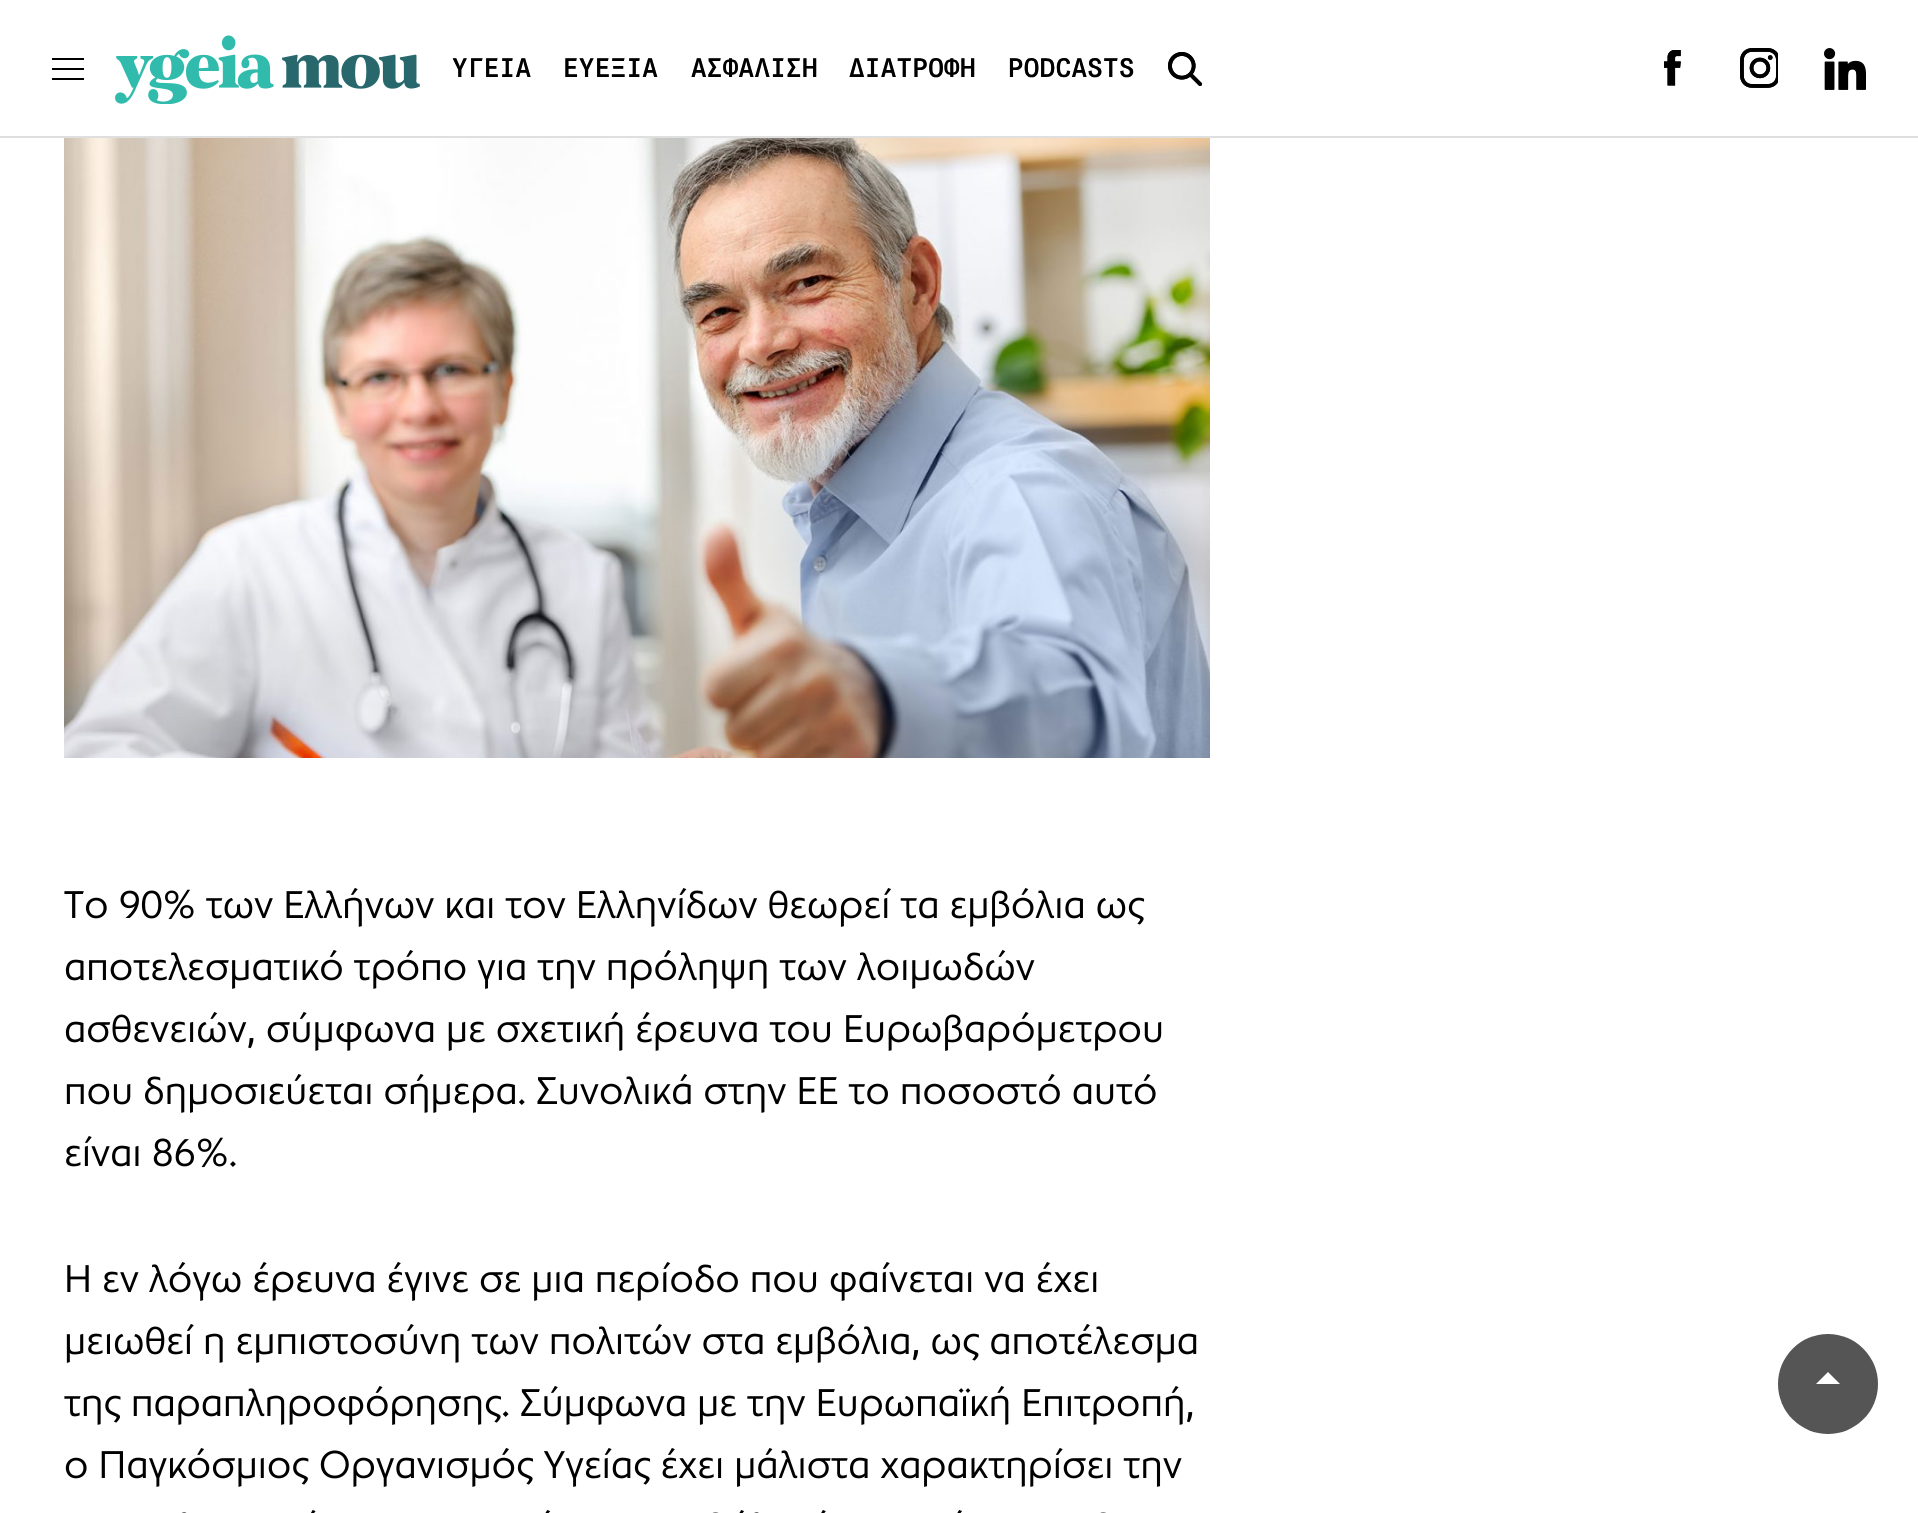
void draw(SkCanvas* canvas) {
	SkPaint paint;
	paint.setAntiAlias(true);
	auto spacedText = [&](const char* s, float x, float y, const SkFont& font, const SkPaint& ink, float letter, float word) {
		std::vector<SkGlyphID> glyphs(font.countText(s, strlen(s), SkTextEncoding::kUTF8));
		std::vector<float> xs(glyphs.size());
		font.textToGlyphs(s, strlen(s), SkTextEncoding::kUTF8, glyphs);
		font.getXPos(glyphs, xs, x);
		float extra = 0;
		for (size_t i = 0; i < glyphs.size(); i++) {
			xs[i] += extra;
			extra += letter + word * (glyphs[i] == font.unicharToGlyph(' '));
		}
		canvas->drawTextBlob(SkTextBlob::MakeFromPosHGlyphs(glyphs, xs, y, font), 0, 0, ink);
	};
	auto svgPath = [&](const char* data, bool evenOdd = false) {
		SkPath result = *SkParsePath::FromSVGString(data);
		if (evenOdd) result.setFillType(SkPathFillType::kEvenOdd);
		return result;
	};
	canvas->clear(0xffffffff);
	paint.setColor(0xffdfdfdf);
	canvas->drawRect(SkRect::MakeXYWH(0, 136, 1918, 2), paint);
	paint.setColor(0xff000000);
	canvas->drawRect(SkRect::MakeXYWH(52, 58, 32, 2), paint);
	canvas->drawRect(SkRect::MakeXYWH(52, 68, 32, 2), paint);
	canvas->drawRect(SkRect::MakeXYWH(52, 78, 32, 2), paint);
	canvas->drawImageRect(SkImages::DeferredFromEncodedData(SkData::MakeFromFileName("img1.png")), SkRect::MakeXYWH(115, 35, 305, 69), SkSamplingOptions());
	SkFont f1(fontMgr->matchFamilyStyle("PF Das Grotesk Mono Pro", SkFontStyle(500, SkFontStyle::kNormal_Width, SkFontStyle::kUpright_Slant)), 26);
	f1.setSubpixel(true);
	spacedText("ΥΓΕΙΑ", 452, 77, f1, paint, 0.25, 0);
	spacedText("ΕΥΕΞΙΑ", 563, 77, f1, paint, 0.25, 0);
	spacedText("ΑΣΦΑΛΙΣΗ", 691, 77, f1, paint, 0.25, 0);
	spacedText("ΔΙΑΤΡΟΦΗ", 849, 77, f1, paint, 0.25, 0);
	spacedText("PODCASTS", 1008, 77, f1, paint, 0.25, 0);
	canvas->drawImageRect(SkImages::DeferredFromEncodedData(SkData::MakeFromFileName("img2.png")), SkRect::MakeXYWH(1168, 52, 34, 34), SkSamplingOptions());
	canvas->drawImageRect(SkImages::DeferredFromEncodedData(SkData::MakeFromFileName("img3.png")), SkRect::MakeXYWH(1664, 50, 17, 36), SkSamplingOptions());
	canvas->drawImageRect(SkImages::DeferredFromEncodedData(SkData::MakeFromFileName("img4.png")), SkRect::MakeXYWH(1740, 48, 38, 40), SkSamplingOptions());
	canvas->drawImageRect(SkImages::DeferredFromEncodedData(SkData::MakeFromFileName("img5.png")), SkRect::MakeXYWH(1824, 48, 42, 42), SkSamplingOptions());
	canvas->drawImageRect(SkImages::DeferredFromEncodedData(SkData::MakeFromFileName("img6.png")), SkRect::MakeXYWH(64, 138, 1146, 620), SkSamplingOptions());
	canvas->drawImageRect(SkImages::DeferredFromEncodedData(SkData::MakeFromFileName("img7.png")), SkRect::MakeXYWH(64, 888, 1081, 39), SkSamplingOptions());
	canvas->drawImageRect(SkImages::DeferredFromEncodedData(SkData::MakeFromFileName("img8.png")), SkRect::MakeXYWH(65, 950, 970, 39), SkSamplingOptions());
	canvas->drawImageRect(SkImages::DeferredFromEncodedData(SkData::MakeFromFileName("img9.png")), SkRect::MakeXYWH(65, 1012, 1097, 39), SkSamplingOptions());
	canvas->drawImageRect(SkImages::DeferredFromEncodedData(SkData::MakeFromFileName("img10.png")), SkRect::MakeXYWH(66, 1074, 1090, 39), SkSamplingOptions());
	canvas->drawImageRect(SkImages::DeferredFromEncodedData(SkData::MakeFromFileName("img11.png")), SkRect::MakeXYWH(66, 1136, 170, 32), SkSamplingOptions());
	canvas->drawImageRect(SkImages::DeferredFromEncodedData(SkData::MakeFromFileName("img12.png")), SkRect::MakeXYWH(67, 1262, 1030, 39), SkSamplingOptions());
	canvas->drawImageRect(SkImages::DeferredFromEncodedData(SkData::MakeFromFileName("img13.png")), SkRect::MakeXYWH(66, 1324, 1131, 39), SkSamplingOptions());
	canvas->drawImageRect(SkImages::DeferredFromEncodedData(SkData::MakeFromFileName("img14.png")), SkRect::MakeXYWH(64, 1386, 1129, 39), SkSamplingOptions());
	canvas->drawImageRect(SkImages::DeferredFromEncodedData(SkData::MakeFromFileName("img15.png")), SkRect::MakeXYWH(65, 1448, 1117, 39), SkSamplingOptions());
	canvas->drawImageRect(SkImages::DeferredFromEncodedData(SkData::MakeFromFileName("img16.png")), SkRect::MakeXYWH(181, 1510, 925, 3), SkSamplingOptions());
	paint.setColor(0xff555555);
	canvas->drawCircle(1828, 1384, 50, paint);
	paint.setColor(0xffffffff);
	canvas->drawPath(svgPath("M1840 1384H1816L1828 1372Z"), paint);
}
